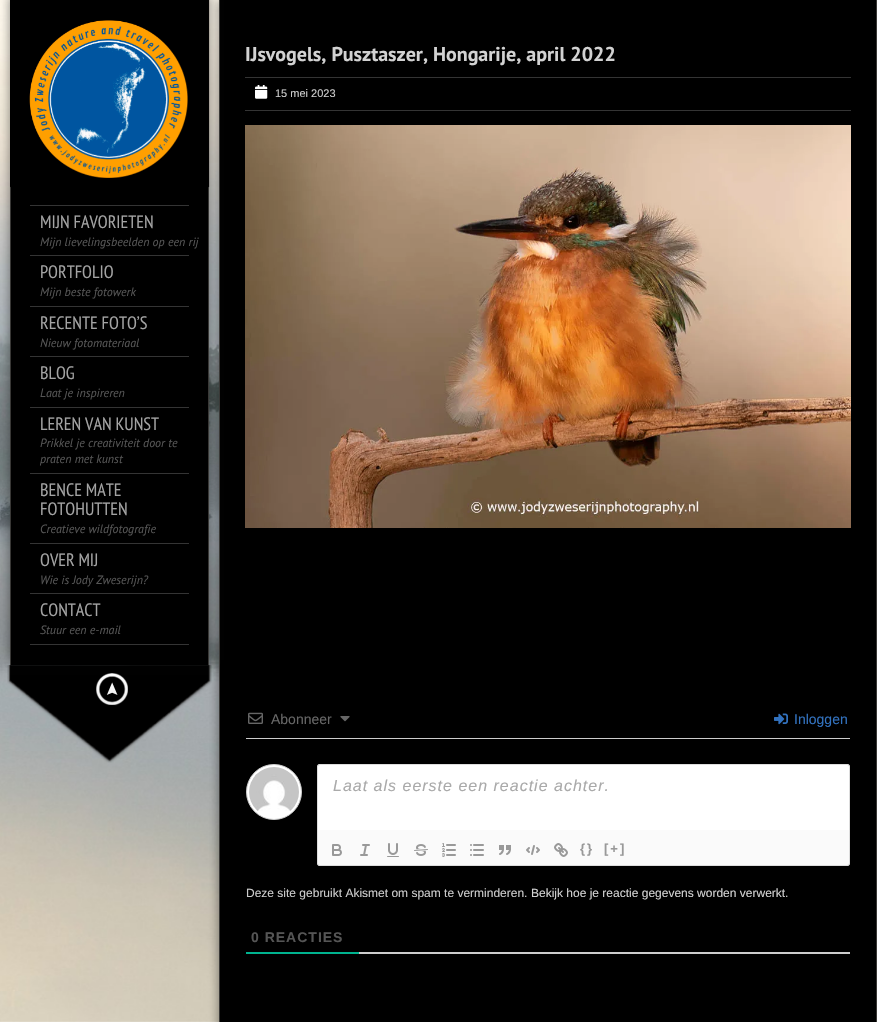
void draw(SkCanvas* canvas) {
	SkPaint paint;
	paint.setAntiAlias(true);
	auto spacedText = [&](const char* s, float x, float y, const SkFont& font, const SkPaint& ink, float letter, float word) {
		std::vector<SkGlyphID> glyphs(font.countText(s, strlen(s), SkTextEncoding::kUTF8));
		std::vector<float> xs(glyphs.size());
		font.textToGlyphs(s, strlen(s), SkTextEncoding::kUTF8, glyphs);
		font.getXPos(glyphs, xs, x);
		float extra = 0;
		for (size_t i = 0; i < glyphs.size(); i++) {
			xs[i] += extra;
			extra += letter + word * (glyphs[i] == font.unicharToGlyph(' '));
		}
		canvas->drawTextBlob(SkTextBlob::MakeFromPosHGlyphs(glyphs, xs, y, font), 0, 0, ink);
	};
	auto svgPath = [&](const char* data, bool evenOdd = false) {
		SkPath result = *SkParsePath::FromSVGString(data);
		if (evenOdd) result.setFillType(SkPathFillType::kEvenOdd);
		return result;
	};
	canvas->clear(0xffffffff);
	canvas->drawImageRect(SkImages::DeferredFromEncodedData(SkData::MakeFromFileName("img1.png")), SkRect::MakeXYWH(0, 0, 219, 1022), SkSamplingOptions());
	paint.setColor(0x80111111);
	paint.setMaskFilter(SkMaskFilter::MakeBlur(kNormal_SkBlurStyle, 5));
	canvas->drawRect(SkRect::MakeXYWH(219, 0, 658, 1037), paint);
	paint.setMaskFilter(nullptr);
	paint.setColor(0xff000000);
	canvas->drawRect(SkRect::MakeXYWH(220, 0, 656, 1022), paint);
	paint.setColor(0xff393836);
	canvas->drawRect(SkRect::MakeXYWH(876, 0, 1, 1022), paint);
	canvas->drawRect(SkRect::MakeXYWH(219, 0, 1, 1022), paint);
	SkFont f1(fontMgr->matchFamilyStyle("PT Sans", SkFontStyle::Bold()), 20);
	f1.setSubpixel(true);
	paint.setColor(0xffd2d2d2);
	canvas->drawString("IJsvogels, Pusztaszer, Hongarije, april 2022", 245, 61, f1, paint);
	paint.setColor(0xff343434);
	canvas->drawRect(SkRect::MakeXYWH(245, 77, 606, 1), paint);
	canvas->drawRect(SkRect::MakeXYWH(245, 110, 606, 1), paint);
	canvas->drawImageRect(SkImages::DeferredFromEncodedData(SkData::MakeFromFileName("img2.png")), SkRect::MakeXYWH(255, 85, 13, 14), SkSamplingOptions());
	SkFont f2(fontMgr->matchFamilyStyle("Liberation Sans", SkFontStyle::Normal()), 11);
	f2.setSubpixel(true);
	paint.setColor(0xffcccccc);
	canvas->drawString("15 mei 2023", 275, 97, f2, paint);
	canvas->drawImageRect(SkImages::DeferredFromEncodedData(SkData::MakeFromFileName("img3.png")), SkRect::MakeXYWH(245, 125, 606, 403), SkSamplingOptions());
	canvas->drawRect(SkRect::MakeXYWH(246, 738, 604, 1), paint);
	canvas->drawImageRect(SkImages::DeferredFromEncodedData(SkData::MakeFromFileName("img4.png")), SkRect::MakeXYWH(248, 712, 15, 12), SkSamplingOptions());
	SkFont f3(fontMgr->matchFamilyStyle("Liberation Sans", SkFontStyle::Normal()), 14);
	f3.setSubpixel(true);
	paint.setColor(0xff666666);
	canvas->drawString("Abonneer", 271, 724, f3, paint);
	canvas->drawImageRect(SkImages::DeferredFromEncodedData(SkData::MakeFromFileName("img5.png")), SkRect::MakeXYWH(340, 716, 10, 6), SkSamplingOptions());
	canvas->drawImageRect(SkImages::DeferredFromEncodedData(SkData::MakeFromFileName("img6.png")), SkRect::MakeXYWH(774, 713, 14, 12), SkSamplingOptions());
	paint.setColor(0xff3272bf);
	canvas->drawString("Inloggen", 794, 724, f3, paint);
	paint.setColor(0xffffffff);
	canvas->drawCircle(274, 792, 27.5, paint);
	paint.setStroke(true);
	paint.setStrokeWidth(1);
	paint.setColor(0xffcccccc);
	canvas->drawCircle(274, 792, 27.5, paint);
	canvas->drawImageRect(SkImages::DeferredFromEncodedData(SkData::MakeFromFileName("img7.png")), SkRect::MakeXYWH(249, 767, 50, 44), SkSamplingOptions());
	paint.setStroke(false);
	paint.setColor(0xffffffff);
	canvas->drawPath(svgPath("M320 764H847C848.5 764 850 765.5 850 767V830H317V767C317 765.5 318.5 764 320 764Z"), paint);
	paint.setColor(0xffdddddd);
	canvas->drawPath(svgPath("M320 764H847C849 764 850 765 850 767V830H317V767C317 765 318 764 320 764ZM320 765H847C848 765 849 766 849 767V830H318V767C318 766 319 765 320 765Z", true), paint);
	SkFont f4(fontMgr->matchFamilyStyle("Liberation Sans", SkFontStyle::Italic()), 16);
	f4.setSubpixel(true);
	paint.setColor(0xffaaaaaa);
	spacedText("Laat als eerste een reactie achter.", 333, 791, f4, paint, 1, 0);
	paint.setColor(0xfffafafa);
	canvas->drawPath(svgPath("M317 830H850V863C850 864.5 848.5 866 847 866H320C318.5 866 317 864.5 317 863Z"), paint);
	paint.setColor(0xffdddddd);
	canvas->drawPath(svgPath("M317 830H850V863C850 865 849 866 847 866H320C318 866 317 865 317 863ZM318 830H849V863C849 864 848 865 847 865H320C319 865 318 864 318 863Z", true), paint);
	canvas->drawImageRect(SkImages::DeferredFromEncodedData(SkData::MakeFromFileName("img8.png")), SkRect::MakeXYWH(332, 844, 10, 12), SkSamplingOptions());
	canvas->drawImageRect(SkImages::DeferredFromEncodedData(SkData::MakeFromFileName("img9.png")), SkRect::MakeXYWH(360, 844, 10, 12), SkSamplingOptions());
	canvas->drawImageRect(SkImages::DeferredFromEncodedData(SkData::MakeFromFileName("img10.png")), SkRect::MakeXYWH(387, 843, 12, 14), SkSamplingOptions());
	canvas->drawImageRect(SkImages::DeferredFromEncodedData(SkData::MakeFromFileName("img11.png")), SkRect::MakeXYWH(414, 844, 14, 12), SkSamplingOptions());
	canvas->drawImageRect(SkImages::DeferredFromEncodedData(SkData::MakeFromFileName("img12.png")), SkRect::MakeXYWH(442, 843, 14, 14), SkSamplingOptions());
	canvas->drawImageRect(SkImages::DeferredFromEncodedData(SkData::MakeFromFileName("img13.png")), SkRect::MakeXYWH(470, 844, 14, 12), SkSamplingOptions());
	canvas->drawImageRect(SkImages::DeferredFromEncodedData(SkData::MakeFromFileName("img14.png")), SkRect::MakeXYWH(499, 845, 12, 10), SkSamplingOptions());
	canvas->drawImageRect(SkImages::DeferredFromEncodedData(SkData::MakeFromFileName("img15.png")), SkRect::MakeXYWH(526, 845, 14, 10), SkSamplingOptions());
	canvas->drawImageRect(SkImages::DeferredFromEncodedData(SkData::MakeFromFileName("img16.png")), SkRect::MakeXYWH(554, 843, 14, 14), SkSamplingOptions());
	SkFont f5(fontMgr->matchFamilyStyle("Liberation Sans", SkFontStyle::Bold()), 13);
	f5.setSubpixel(true);
	paint.setColor(0xff999999);
	spacedText("{}", 580, 853, f5, paint, 2, 0);
	spacedText("[+]", 604, 853, f5, paint, 2, 0);
	SkFont f6(fontMgr->matchFamilyStyle("Liberation Sans", SkFontStyle::Normal()), 12);
	f6.setSubpixel(true);
	paint.setColor(0xffcccccc);
	canvas->drawString("Deze site gebruikt Akismet om spam te verminderen.", 246, 897, f6, paint);
	paint.setColor(0xffd2d2d2);
	canvas->drawString("Bekijk hoe je reactie gegevens worden verwerkt", 531, 897, f6, paint);
	paint.setColor(0xffcccccc);
	canvas->drawString(".", 785, 897, f6, paint);
	canvas->drawRect(SkRect::MakeXYWH(359, 952, 491, 2), paint);
	paint.setColor(0xff00b38f);
	canvas->drawRect(SkRect::MakeXYWH(246, 952, 113, 2), paint);
	SkFont f7(fontMgr->matchFamilyStyle("Liberation Sans", SkFontStyle::Bold()), 14);
	f7.setSubpixel(true);
	paint.setColor(0xff555555);
	spacedText("0 REACTIES", 251, 942, f7, paint, 1, 0);
	canvas->drawImageRect(SkImages::DeferredFromEncodedData(SkData::MakeFromFileName("img18.png")), SkRect::MakeXYWH(7, 665, 205, 98), SkSamplingOptions());
	paint.setColor(0x80111111);
	paint.setMaskFilter(SkMaskFilter::MakeBlur(kNormal_SkBlurStyle, 5));
	canvas->drawRect(SkRect::MakeXYWH(10, -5, 199, 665), paint);
	paint.setMaskFilter(nullptr);
	paint.setColor(0xff000000);
	canvas->drawRect(SkRect::MakeXYWH(11, 186, 197, 479), paint);
	paint.setColor(0xff393836);
	canvas->drawRect(SkRect::MakeXYWH(208, 0, 1, 665), paint);
	canvas->drawRect(SkRect::MakeXYWH(10, 186, 1, 479), paint);
	canvas->drawImageRect(SkImages::DeferredFromEncodedData(SkData::MakeFromFileName("img17.png")), SkRect::MakeXYWH(10, 0, 200, 188), SkSamplingOptions());
	paint.setColor(0xff343434);
	canvas->drawRect(SkRect::MakeXYWH(30, 205, 159, 1), paint);
	canvas->drawRect(SkRect::MakeXYWH(30, 255, 159, 1), paint);
	SkFont f8(fontMgr->matchFamilyStyle("PT Sans Narrow", SkFontStyle::Normal()), 18);
	f8.setSubpixel(true);
	paint.setColor(0xffa3a3a3);
	canvas->drawString("MIJN FAVORIETEN", 40, 228, f8, paint);
	SkFont f9(fontMgr->matchFamilyStyle("PT Sans", SkFontStyle::Italic()), 12);
	f9.setSubpixel(true);
	paint.setColor(0xff555555);
	canvas->drawString("Mijn lievelingsbeelden op een rij", 40, 246, f9, paint);
	paint.setColor(0xff343434);
	canvas->drawRect(SkRect::MakeXYWH(30, 306, 159, 1), paint);
	paint.setColor(0xffa3a3a3);
	canvas->drawString("PORTFOLIO", 40, 278, f8, paint);
	paint.setColor(0xff555555);
	canvas->drawString("Mijn beste fotowerk", 40, 296, f9, paint);
	paint.setColor(0xff343434);
	canvas->drawRect(SkRect::MakeXYWH(30, 356, 159, 1), paint);
	paint.setColor(0xffa3a3a3);
	canvas->drawString("RECENTE FOTO’S", 40, 329, f8, paint);
	paint.setColor(0xff555555);
	canvas->drawString("Nieuw fotomateriaal", 40, 347, f9, paint);
	paint.setColor(0xff343434);
	canvas->drawRect(SkRect::MakeXYWH(30, 407, 159, 1), paint);
	paint.setColor(0xffa3a3a3);
	canvas->drawString("BLOG", 40, 379, f8, paint);
	paint.setColor(0xff555555);
	canvas->drawString("Laat je inspireren", 40, 397, f9, paint);
	paint.setColor(0xff343434);
	canvas->drawRect(SkRect::MakeXYWH(30, 473, 159, 1), paint);
	paint.setColor(0xffa3a3a3);
	canvas->drawString("LEREN VAN KUNST", 40, 430, f8, paint);
	paint.setColor(0xff555555);
	canvas->drawString("Prikkel je creativiteit door te", 40, 447, f9, paint);
	canvas->drawString("praten met kunst", 40, 463, f9, paint);
	paint.setColor(0xff343434);
	canvas->drawRect(SkRect::MakeXYWH(30, 543, 159, 1), paint);
	paint.setColor(0xffa3a3a3);
	canvas->drawString("BENCE MATE", 40, 496, f8, paint);
	canvas->drawString("FOTOHUTTEN", 40, 515, f8, paint);
	paint.setColor(0xff555555);
	canvas->drawString("Creatieve wildfotografie", 40, 533, f9, paint);
	paint.setColor(0xff343434);
	canvas->drawRect(SkRect::MakeXYWH(30, 593, 159, 1), paint);
	paint.setColor(0xffa3a3a3);
	canvas->drawString("OVER MIJ", 40, 566, f8, paint);
	paint.setColor(0xff555555);
	canvas->drawString("Wie is Jody Zweserijn?", 40, 584, f9, paint);
	paint.setColor(0xff343434);
	canvas->drawRect(SkRect::MakeXYWH(30, 644, 159, 1), paint);
	paint.setColor(0xffa3a3a3);
	canvas->drawString("CONTACT", 40, 616, f8, paint);
	paint.setColor(0xff555555);
	canvas->drawString("Stuur een e-mail", 40, 634, f9, paint);
	canvas->drawImageRect(SkImages::DeferredFromEncodedData(SkData::MakeFromFileName("img19.png")), SkRect::MakeXYWH(96, 673, 32, 33), SkSamplingOptions());
}
